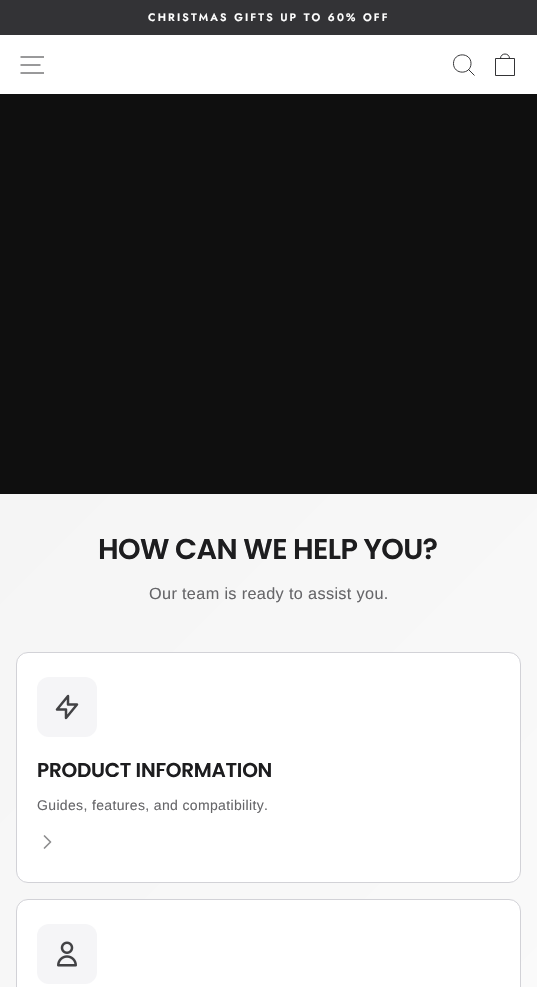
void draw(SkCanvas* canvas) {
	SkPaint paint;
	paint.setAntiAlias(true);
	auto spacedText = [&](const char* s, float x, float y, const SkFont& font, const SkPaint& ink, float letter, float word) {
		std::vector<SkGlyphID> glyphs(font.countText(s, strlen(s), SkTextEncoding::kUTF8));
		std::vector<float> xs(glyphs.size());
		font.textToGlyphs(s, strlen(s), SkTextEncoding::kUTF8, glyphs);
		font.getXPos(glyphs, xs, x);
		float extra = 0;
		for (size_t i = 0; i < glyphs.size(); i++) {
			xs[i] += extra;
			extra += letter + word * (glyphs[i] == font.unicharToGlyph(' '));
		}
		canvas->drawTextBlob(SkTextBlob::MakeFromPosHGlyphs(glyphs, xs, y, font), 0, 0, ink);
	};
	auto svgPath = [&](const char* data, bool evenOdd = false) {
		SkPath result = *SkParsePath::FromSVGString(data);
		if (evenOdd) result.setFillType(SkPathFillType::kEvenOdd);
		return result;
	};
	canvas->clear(0xffffffff);
	paint.setColor(0xff333336);
	canvas->drawRect(SkRect::MakeXYWH(0, 0, 537, 35), paint);
	SkFont f1(fontMgr->matchFamilyStyle("Jost", SkFontStyle(600, SkFontStyle::kNormal_Width, SkFontStyle::kUpright_Slant)), 10.8);
	f1.setSubpixel(true);
	paint.setColor(0xffffffff);
	spacedText("CHRISTMAS GIFTS UP TO 60% OFF", 148, 21, f1, paint, 2.15, 0);
	paint.setStroke(true);
	paint.setStrokeWidth(0.9);
	paint.setColor(0xff1d1d1f);
	canvas->drawPath(svgPath("M20.5 57H44M20.5 65H40.5M20.5 73H44"), paint);
	canvas->drawPath(svgPath("M471 63.5C471 75 453.5 75 453.5 63.5C453.5 52 471 52 471 63.5ZM474.5 75.5L468.5 69.5M495.5 58.5H514.5V75.5H495.5ZM500.5 58.5C500.5 52.5 509.5 52.5 509.5 58.5"), paint);
	paint.setStroke(false);
	paint.setColor(0xff0f0f0f);
	canvas->drawRect(SkRect::MakeXYWH(0, 94, 537, 400), paint);
	{
		const SkColor colors[] = {0xfff5f5f5, 0xffffffff};
		const float stops[] = {0, 1};
		const SkPoint ends[] = {{-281, 775}, {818, 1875}};
		paint.setShader(SkGradientShader::MakeLinear(ends, colors, stops, 2, SkTileMode::kClamp));
		paint.setAlpha(255);
	}
	canvas->drawRect(SkRect::MakeXYWH(0, 494, 537, 493), paint);
	SkFont f2(fontMgr->matchFamilyStyle("Poppins", SkFontStyle(600, SkFontStyle::kNormal_Width, SkFontStyle::kUpright_Slant)), 28.75);
	f2.setSubpixel(true);
	paint.setShader(nullptr);
	paint.setColor(0xff1d1d1f);
	spacedText("HOW CAN WE HELP YOU?", 98, 559, f2, paint, -0.6, 0);
	SkFont f3(fontMgr->matchFamilyStyle("Liberation Sans", SkFontStyle::Normal()), 16.25);
	f3.setSubpixel(true);
	paint.setColor(0xff666669);
	spacedText("Our team is ready to assist you.", 149, 599, f3, paint, 0.35, 0);
	paint.setColor(0xffffffff);
	canvas->drawRoundRect(SkRect::MakeXYWH(16.5, 652.5, 504, 230), 11.5, 11.5, paint);
	paint.setStroke(true);
	paint.setStrokeWidth(1);
	paint.setColor(0xffd2d2d7);
	canvas->drawRoundRect(SkRect::MakeXYWH(16.5, 652.5, 504, 230), 11.5, 11.5, paint);
	paint.setStroke(false);
	paint.setColor(0xfff5f5f7);
	canvas->drawRoundRect(SkRect::MakeXYWH(37, 677, 60, 60), 12, 12, paint);
	paint.setStroke(true);
	paint.setStrokeWidth(2.5);
	paint.setStrokeCap(SkPaint::kRound_Cap);
	paint.setStrokeJoin(SkPaint::kRound_Join);
	paint.setColor(0xff424245);
	canvas->drawPath(svgPath("M68 704.5V696L57 709.5H66V718L77 704.5Z"), paint);
	SkFont f4(fontMgr->matchFamilyStyle("Poppins", SkFontStyle(600, SkFontStyle::kNormal_Width, SkFontStyle::kUpright_Slant)), 20);
	f4.setSubpixel(true);
	paint.setStroke(false);
	paint.setColor(0xff1d1d1f);
	spacedText("PRODUCT INFORMATION", 37, 777, f4, paint, -0.25, 0);
	SkFont f5(fontMgr->matchFamilyStyle("Liberation Sans", SkFontStyle::Normal()), 14);
	f5.setSubpixel(true);
	paint.setColor(0xff666669);
	spacedText("Guides, features, and compatibility.", 37, 810, f5, paint, 0.35, 0);
	paint.setStroke(true);
	paint.setStrokeWidth(1.7);
	paint.setColor(0xff8e8e8f);
	canvas->drawPath(svgPath("M44.5 836L50.5 842L44.5 848"), paint);
	paint.setStroke(false);
	paint.setColor(0xffffffff);
	canvas->drawRoundRect(SkRect::MakeXYWH(16.5, 899.5, 504, 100), 11.5, 11.5, paint);
	paint.setStroke(true);
	paint.setStrokeWidth(1);
	paint.setStrokeCap(SkPaint::kButt_Cap);
	paint.setStrokeJoin(SkPaint::kMiter_Join);
	paint.setColor(0xffd2d2d7);
	canvas->drawRoundRect(SkRect::MakeXYWH(16.5, 899.5, 504, 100), 11.5, 11.5, paint);
	paint.setStroke(false);
	paint.setColor(0xfff5f5f7);
	canvas->drawRoundRect(SkRect::MakeXYWH(37, 924, 60, 60), 12, 12, paint);
	canvas->drawImageRect(SkImages::DeferredFromEncodedData(SkData::MakeFromFileName("img1.png")), SkRect::MakeXYWH(57, 941, 20, 26), SkSamplingOptions());
}
